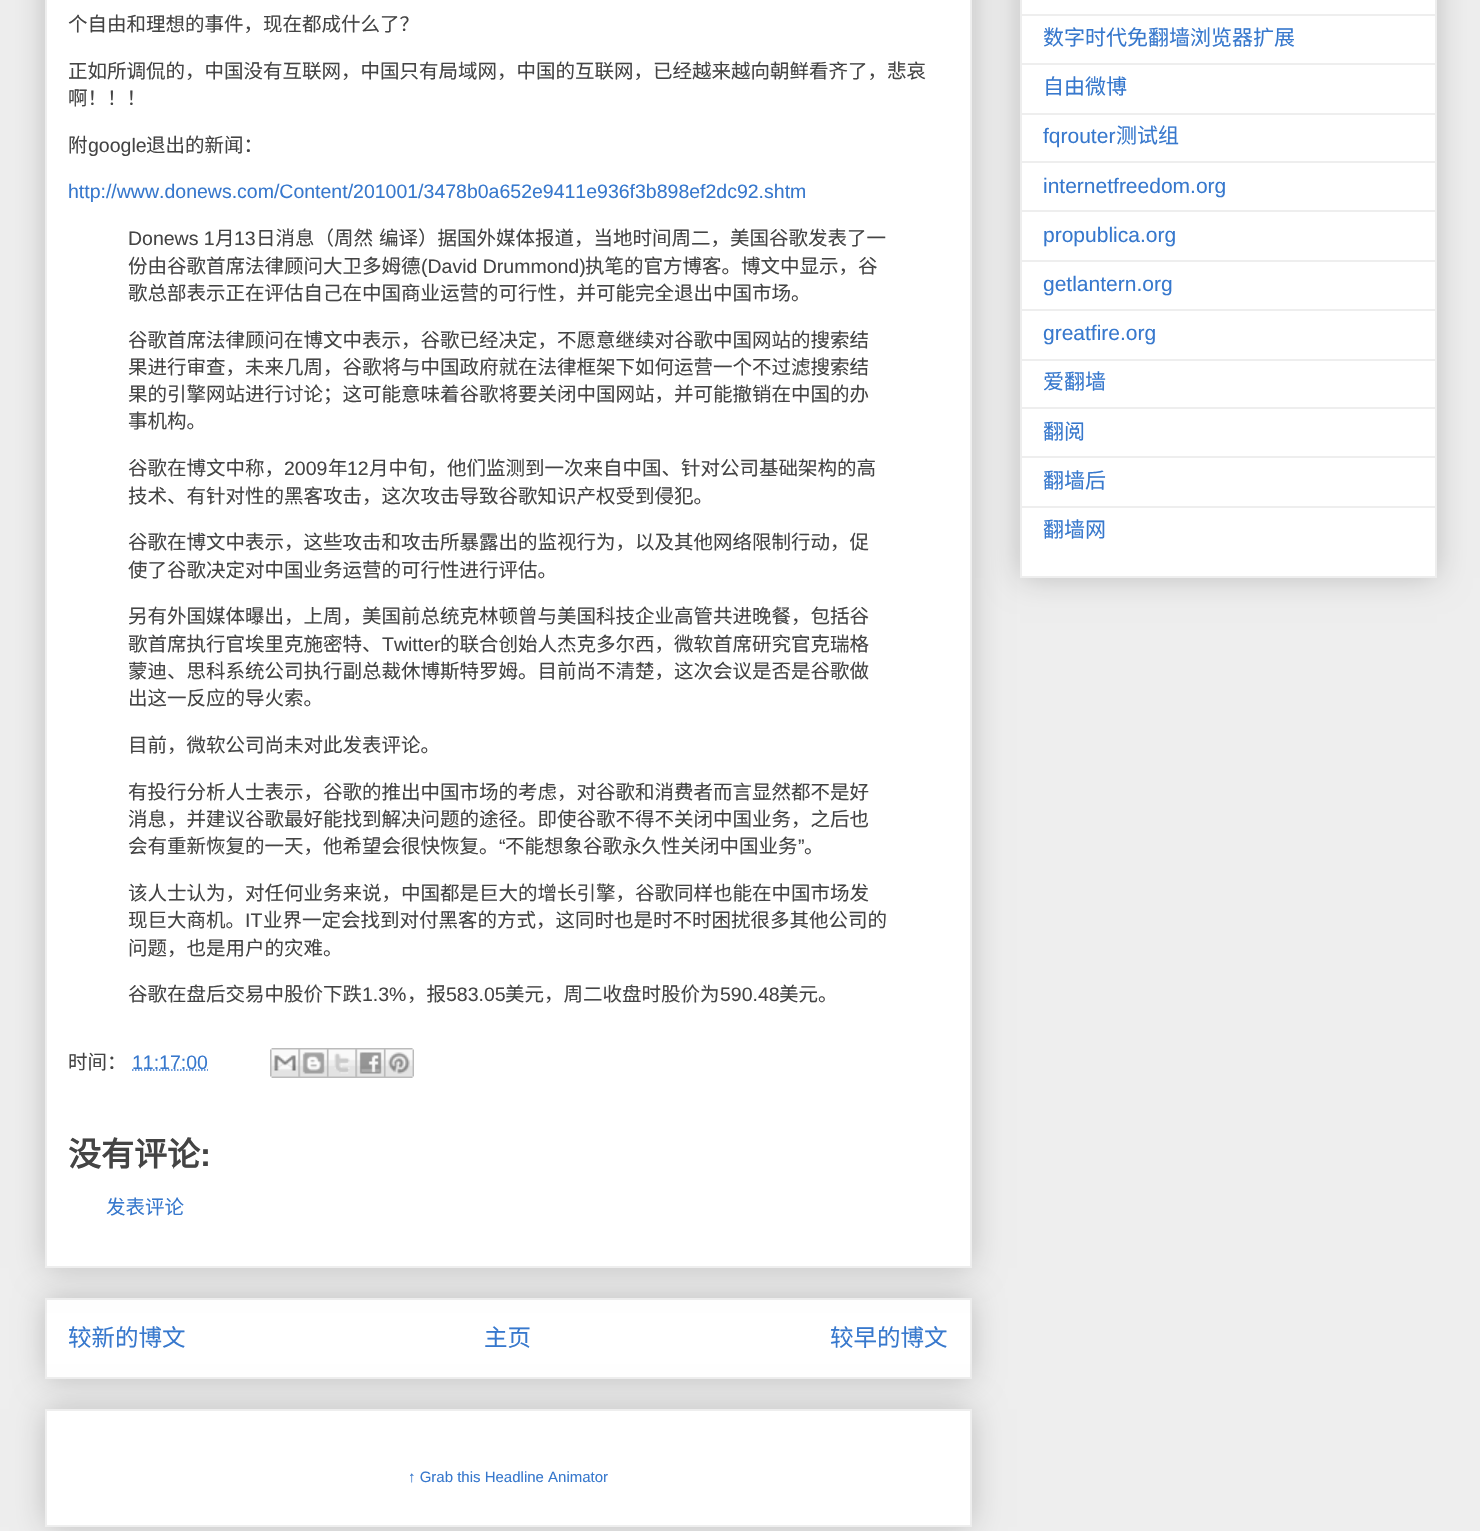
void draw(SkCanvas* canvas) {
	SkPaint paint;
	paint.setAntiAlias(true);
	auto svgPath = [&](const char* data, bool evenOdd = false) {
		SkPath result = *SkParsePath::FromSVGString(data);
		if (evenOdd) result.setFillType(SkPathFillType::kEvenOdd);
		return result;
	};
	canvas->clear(0xffeeeeee);
	paint.setColor(0x33000000);
	paint.setMaskFilter(SkMaskFilter::MakeBlur(kNormal_SkBlurStyle, 15));
	canvas->drawRect(SkRect::MakeXYWH(45, 1298, 927, 81), paint);
	paint.setMaskFilter(nullptr);
	paint.setColor(0xffffffff);
	canvas->drawRect(SkRect::MakeXYWH(46, 1299, 925, 79), paint);
	paint.setStroke(true);
	paint.setStrokeWidth(2);
	paint.setColor(0xffeeeeee);
	canvas->drawRect(SkRect::MakeXYWH(46, 1299, 925, 79), paint);
	paint.setStroke(false);
	paint.setColor(0x33000000);
	paint.setMaskFilter(SkMaskFilter::MakeBlur(kNormal_SkBlurStyle, 15));
	canvas->drawRect(SkRect::MakeXYWH(45, -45, 927, 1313), paint);
	paint.setMaskFilter(nullptr);
	paint.setColor(0xffffffff);
	canvas->drawRect(SkRect::MakeXYWH(46, -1, 925, 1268), paint);
	paint.setStroke(true);
	paint.setColor(0xffeeeeee);
	canvas->drawRect(SkRect::MakeXYWH(46, -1, 925, 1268), paint);
	SkFont f1(fontMgr->matchFamilyStyle("Noto Sans CJK SC", SkFontStyle::Normal()), 19.5);
	f1.setSubpixel(true);
	paint.setStroke(false);
	paint.setColor(0xff444444);
	canvas->drawString("个自由和理想的事件，现在都成什么了？", 68, 31, f1, paint);
	canvas->drawString("正如所调侃的，中国没有互联网，中国只有局域网，中国的互联网，已经越来越向朝鲜看齐了，悲哀", 68, 78, f1, paint);
	canvas->drawString("啊！！！", 68, 105, f1, paint);
	canvas->drawString("附", 68, 152, f1, paint);
	SkFont f2(fontMgr->matchFamilyStyle("Liberation Sans", SkFontStyle::Normal()), 19.5);
	f2.setSubpixel(true);
	canvas->drawString("google", 88, 152, f2, paint);
	canvas->drawString("退出的新闻：", 146, 152, f1, paint);
	paint.setColor(0xff3778cd);
	canvas->drawString("http://www.donews.com/Content/201001/3478b0a652e9411e936f3b898ef2dc92.shtm", 68, 198, f2, paint);
	paint.setColor(0xff444444);
	canvas->drawString("Donews 1", 128, 245, f2, paint);
	canvas->drawString("月", 215, 245, f1, paint);
	canvas->drawString("13", 234, 245, f2, paint);
	canvas->drawString("日消息（周然", 256, 245, f1, paint);
	canvas->drawString("编译）据国外媒体报道，当地时间周二，美国谷歌发表了一", 379, 245, f1, paint);
	canvas->drawString("份由谷歌首席法律顾问大卫多姆德", 128, 273, f1, paint);
	canvas->drawString("(David Drummond)", 421, 273, f2, paint);
	canvas->drawString("执笔的官方博客。博文中显示，谷", 585, 273, f1, paint);
	canvas->drawString("歌总部表示正在评估自己在中国商业运营的可行性，并可能完全退出中国市场。", 128, 300, f1, paint);
	canvas->drawString("谷歌首席法律顾问在博文中表示，谷歌已经决定，不愿意继续对谷歌中国网站的搜索结", 128, 347, f1, paint);
	canvas->drawString("果进行审查，未来几周，谷歌将与中国政府就在法律框架下如何运营一个不过滤搜索结", 128, 374, f1, paint);
	canvas->drawString("果的引擎网站进行讨论；这可能意味着谷歌将要关闭中国网站，并可能撤销在中国的办", 128, 401, f1, paint);
	canvas->drawString("事机构。", 128, 428, f1, paint);
	canvas->drawString("谷歌在博文中称，", 128, 475, f1, paint);
	canvas->drawString("2009", 284, 475, f2, paint);
	canvas->drawString("年", 328, 475, f1, paint);
	canvas->drawString("12", 347, 475, f2, paint);
	canvas->drawString("月中旬，他们监测到一次来自中国、针对公司基础架构的高", 369, 475, f1, paint);
	canvas->drawString("技术、有针对性的黑客攻击，这次攻击导致谷歌知识产权受到侵犯。", 128, 503, f1, paint);
	canvas->drawString("谷歌在博文中表示，这些攻击和攻击所暴露出的监视行为，以及其他网络限制行动，促", 128, 549, f1, paint);
	canvas->drawString("使了谷歌决定对中国业务运营的可行性进行评估。", 128, 577, f1, paint);
	canvas->drawString("另有外国媒体曝出，上周，美国前总统克林顿曾与美国科技企业高管共进晚餐，包括谷", 128, 623, f1, paint);
	canvas->drawString("歌首席执行官埃里克施密特、", 128, 651, f1, paint);
	canvas->drawString("Twitter", 382, 651, f2, paint);
	canvas->drawString("的联合创始人杰克多尔西，微软首席研究官克瑞格", 440, 651, f1, paint);
	canvas->drawString("蒙迪、思科系统公司执行副总裁休博斯特罗姆。目前尚不清楚，这次会议是否是谷歌做", 128, 678, f1, paint);
	canvas->drawString("出这一反应的导火索。", 128, 705, f1, paint);
	canvas->drawString("目前，微软公司尚未对此发表评论。", 128, 752, f1, paint);
	canvas->drawString("有投行分析人士表示，谷歌的推出中国市场的考虑，对谷歌和消费者而言显然都不是好", 128, 799, f1, paint);
	canvas->drawString("消息，并建议谷歌最好能找到解决问题的途径。即使谷歌不得不关闭中国业务，之后也", 128, 826, f1, paint);
	canvas->drawString("会有重新恢复的一天，他希望会很快恢复。", 128, 853, f1, paint);
	canvas->drawString("“", 499, 853, f2, paint);
	canvas->drawString("不能想象谷歌永久性关闭中国业务", 505, 853, f1, paint);
	canvas->drawString("”", 798, 853, f2, paint);
	canvas->drawString("。", 804, 853, f1, paint);
	canvas->drawString("该人士认为，对任何业务来说，中国都是巨大的增长引擎，谷歌同样也能在中国市场发", 128, 900, f1, paint);
	canvas->drawString("现巨大商机。", 128, 927, f1, paint);
	canvas->drawString("IT", 245, 927, f2, paint);
	canvas->drawString("业界一定会找到对付黑客的方式，这同时也是时不时困扰很多其他公司的", 263, 927, f1, paint);
	canvas->drawString("问题，也是用户的灾难。", 128, 955, f1, paint);
	canvas->drawString("谷歌在盘后交易中股价下跌", 128, 1001, f1, paint);
	canvas->drawString("1.3%", 362, 1001, f2, paint);
	canvas->drawString("，报", 407, 1001, f1, paint);
	canvas->drawString("583.05", 446, 1001, f2, paint);
	canvas->drawString("美元，周二收盘时股价为", 505, 1001, f1, paint);
	canvas->drawString("590.48", 720, 1001, f2, paint);
	canvas->drawString("美元。", 779, 1001, f1, paint);
	canvas->drawString("时间：", 68, 1069, f1, paint);
	paint.setStroke(true);
	paint.setStrokeWidth(1.5);
	paint.setColor(0xff3778cd);
	paint.setPathEffect(SkDashPathEffect::Make({{1.5f, 1.5f}}, 0));
	canvas->drawPath(svgPath("M132 1070H208"), paint);
	paint.setPathEffect(nullptr);
	paint.setStroke(false);
	canvas->drawString("11:17:00", 132, 1069, f2, paint);
	canvas->drawImageRect(SkImages::DeferredFromEncodedData(SkData::MakeFromFileName("img1.png")), SkRect::MakeXYWH(270, 1048, 29, 30), SkSamplingOptions());
	canvas->drawImageRect(SkImages::DeferredFromEncodedData(SkData::MakeFromFileName("img2.png")), SkRect::MakeXYWH(298, 1048, 29, 30), SkSamplingOptions());
	canvas->drawImageRect(SkImages::DeferredFromEncodedData(SkData::MakeFromFileName("img3.png")), SkRect::MakeXYWH(327, 1048, 29, 30), SkSamplingOptions());
	canvas->drawImageRect(SkImages::DeferredFromEncodedData(SkData::MakeFromFileName("img4.png")), SkRect::MakeXYWH(355, 1048, 29, 30), SkSamplingOptions());
	canvas->drawImageRect(SkImages::DeferredFromEncodedData(SkData::MakeFromFileName("img5.png")), SkRect::MakeXYWH(384, 1048, 30, 30), SkSamplingOptions());
	SkFont f3(fontMgr->matchFamilyStyle("Noto Sans CJK SC", SkFontStyle::Bold()), 33);
	f3.setSubpixel(true);
	paint.setColor(0xff444444);
	canvas->drawString("没有评论", 68, 1166, f3, paint);
	SkFont f4(fontMgr->matchFamilyStyle("Liberation Sans", SkFontStyle::Bold()), 33);
	f4.setSubpixel(true);
	canvas->drawString(":", 200, 1166, f4, paint);
	paint.setColor(0xff3778cd);
	canvas->drawString("发表评论", 106, 1214, f1, paint);
	SkFont f5(fontMgr->matchFamilyStyle("Noto Sans CJK SC", SkFontStyle::Normal()), 23.5);
	f5.setSubpixel(true);
	canvas->drawString("较新的博文", 68, 1346, f5, paint);
	canvas->drawString("主页", 484, 1346, f5, paint);
	canvas->drawString("较早的博文", 830, 1346, f5, paint);
	paint.setColor(0x33000000);
	paint.setMaskFilter(SkMaskFilter::MakeBlur(kNormal_SkBlurStyle, 15));
	canvas->drawRect(SkRect::MakeXYWH(45, 1409, 927, 118), paint);
	paint.setMaskFilter(nullptr);
	paint.setColor(0xffffffff);
	canvas->drawRect(SkRect::MakeXYWH(46, 1410, 925, 116), paint);
	paint.setStroke(true);
	paint.setStrokeWidth(2);
	paint.setColor(0xffeeeeee);
	canvas->drawRect(SkRect::MakeXYWH(46, 1410, 925, 116), paint);
	SkFont f6(fontMgr->matchFamilyStyle("Liberation Sans", SkFontStyle::Normal()), 15);
	f6.setSubpixel(true);
	paint.setStroke(false);
	paint.setColor(0xff3778cd);
	canvas->drawString("↑ Grab this Headline Animator", 408, 1482, f6, paint);
	paint.setColor(0x33000000);
	paint.setMaskFilter(SkMaskFilter::MakeBlur(kNormal_SkBlurStyle, 15));
	canvas->drawRect(SkRect::MakeXYWH(1020, -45, 417, 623), paint);
	paint.setMaskFilter(nullptr);
	paint.setColor(0xffffffff);
	canvas->drawRect(SkRect::MakeXYWH(1021, -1, 415, 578), paint);
	paint.setStroke(true);
	paint.setColor(0xffeeeeee);
	canvas->drawRect(SkRect::MakeXYWH(1021, -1, 415, 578), paint);
	paint.setStroke(false);
	canvas->drawRect(SkRect::MakeXYWH(1022, 14, 414, 2), paint);
	SkFont f7(fontMgr->matchFamilyStyle("Noto Sans CJK SC", SkFontStyle::Normal()), 21);
	f7.setSubpixel(true);
	paint.setColor(0xff3778cd);
	canvas->drawString("数字时代免翻墙浏览器扩展", 1043, 45, f7, paint);
	paint.setColor(0xffeeeeee);
	canvas->drawRect(SkRect::MakeXYWH(1022, 63, 414, 2), paint);
	paint.setColor(0xff3778cd);
	canvas->drawString("自由微博", 1043, 94, f7, paint);
	paint.setColor(0xffeeeeee);
	canvas->drawRect(SkRect::MakeXYWH(1022, 113, 414, 2), paint);
	SkFont f8(fontMgr->matchFamilyStyle("Liberation Sans", SkFontStyle::Normal()), 21);
	f8.setSubpixel(true);
	paint.setColor(0xff3778cd);
	canvas->drawString("fqrouter", 1043, 143, f8, paint);
	canvas->drawString("测试组", 1116, 143, f7, paint);
	paint.setColor(0xffeeeeee);
	canvas->drawRect(SkRect::MakeXYWH(1022, 161, 414, 2), paint);
	paint.setColor(0xff3778cd);
	canvas->drawString("internetfreedom.org", 1043, 193, f8, paint);
	paint.setColor(0xffeeeeee);
	canvas->drawRect(SkRect::MakeXYWH(1022, 210, 414, 2), paint);
	paint.setColor(0xff3778cd);
	canvas->drawString("propublica.org", 1043, 242, f8, paint);
	paint.setColor(0xffeeeeee);
	canvas->drawRect(SkRect::MakeXYWH(1022, 260, 414, 2), paint);
	paint.setColor(0xff3778cd);
	canvas->drawString("getlantern.org", 1043, 291, f8, paint);
	paint.setColor(0xffeeeeee);
	canvas->drawRect(SkRect::MakeXYWH(1022, 309, 414, 2), paint);
	paint.setColor(0xff3778cd);
	canvas->drawString("greatfire.org", 1043, 340, f8, paint);
	paint.setColor(0xffeeeeee);
	canvas->drawRect(SkRect::MakeXYWH(1022, 359, 414, 2), paint);
	paint.setColor(0xff3778cd);
	canvas->drawString("爱翻墙", 1043, 389, f7, paint);
	paint.setColor(0xffeeeeee);
	canvas->drawRect(SkRect::MakeXYWH(1022, 407, 414, 2), paint);
	paint.setColor(0xff3778cd);
	canvas->drawString("翻阅", 1043, 439, f7, paint);
	paint.setColor(0xffeeeeee);
	canvas->drawRect(SkRect::MakeXYWH(1022, 456, 414, 2), paint);
	paint.setColor(0xff3778cd);
	canvas->drawString("翻墙后", 1043, 488, f7, paint);
	paint.setColor(0xffeeeeee);
	canvas->drawRect(SkRect::MakeXYWH(1022, 506, 414, 2), paint);
	paint.setColor(0xff3778cd);
	canvas->drawString("翻墙网", 1043, 537, f7, paint);
}
